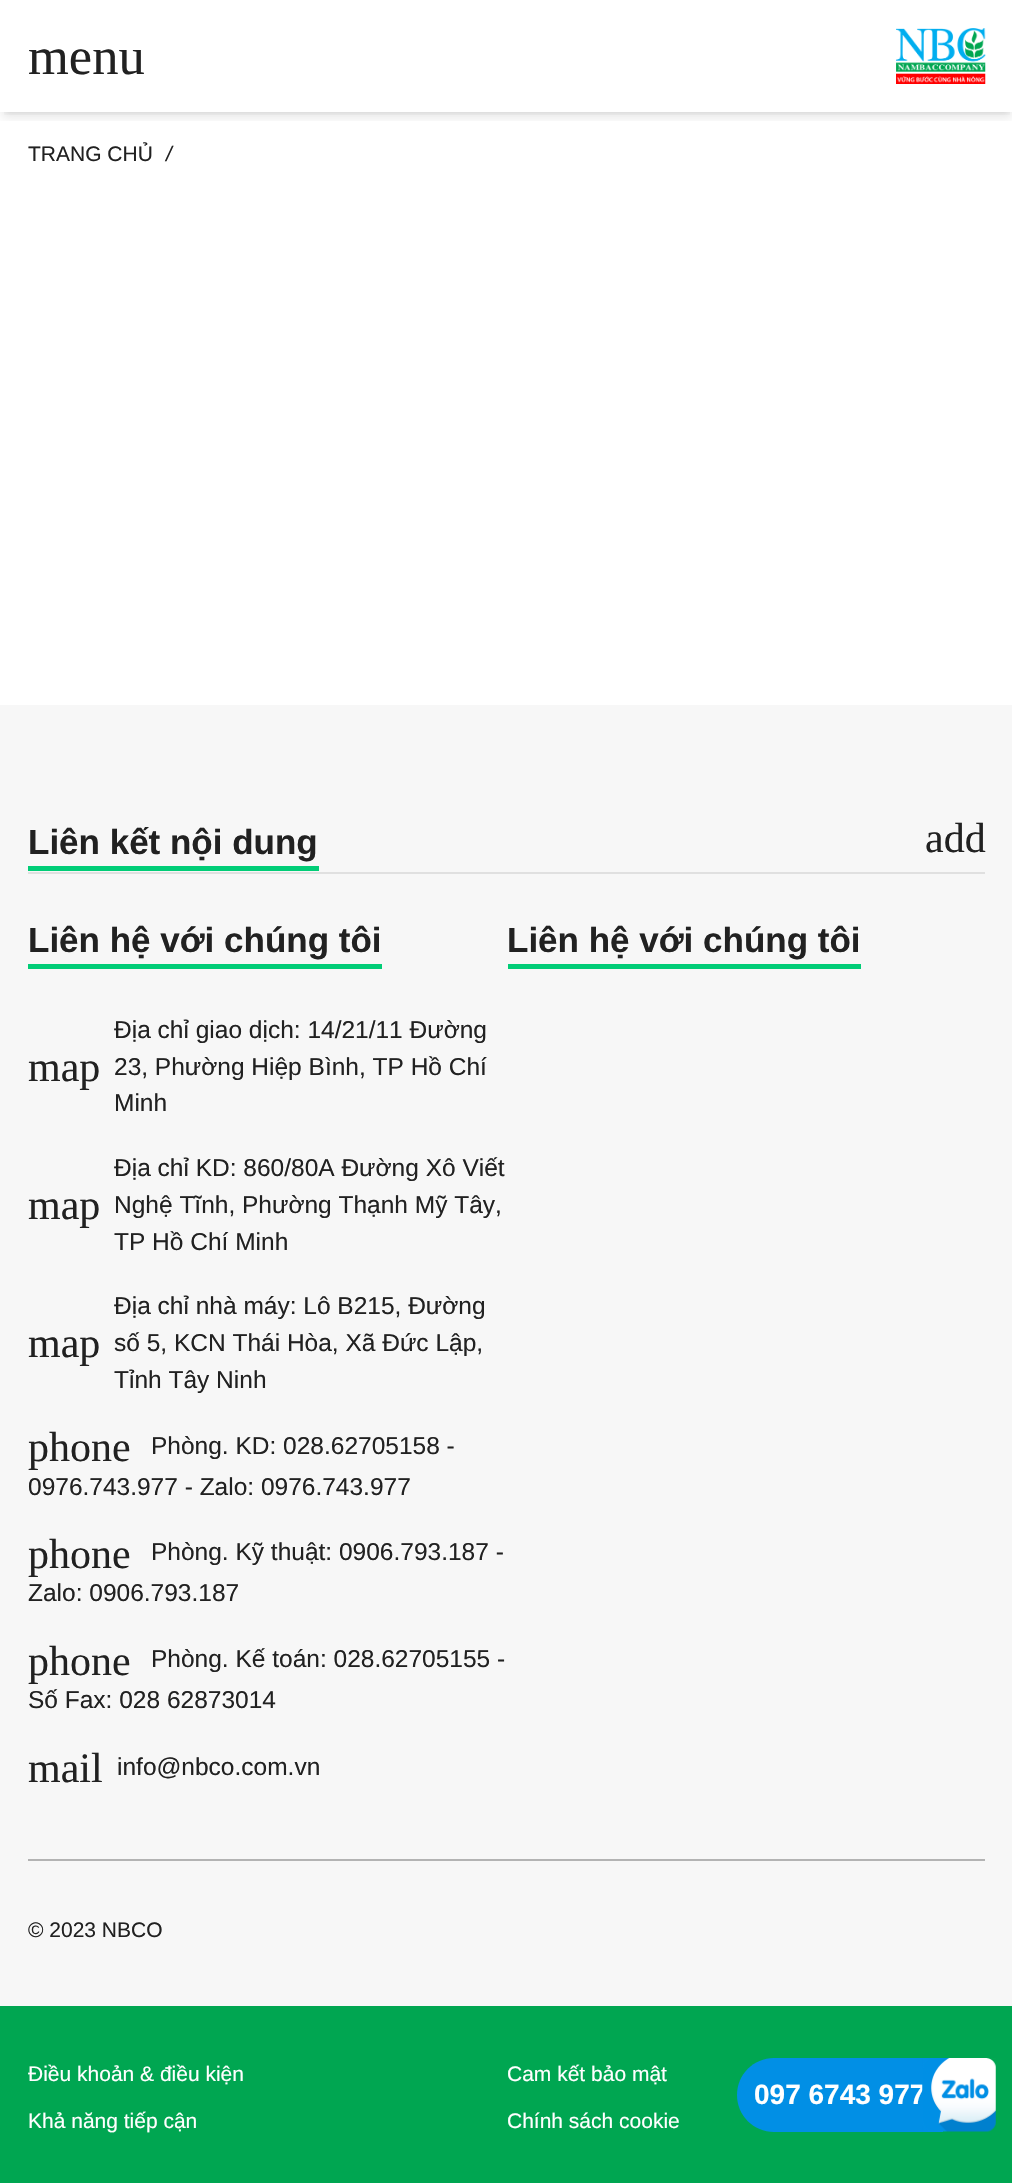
void draw(SkCanvas* canvas) {
	SkPaint paint;
	paint.setAntiAlias(true);
	auto svgPath = [&](const char* data, bool evenOdd = false) {
		SkPath result = *SkParsePath::FromSVGString(data);
		if (evenOdd) result.setFillType(SkPathFillType::kEvenOdd);
		return result;
	};
	canvas->clear(0xffffffff);
	canvas->save();
	canvas->clipRect(SkRect::MakeXYWH(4, 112, 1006, 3));
	paint.setColor(0x1a000000);
	paint.setMaskFilter(SkMaskFilter::MakeBlur(kNormal_SkBlurStyle, 3.5));
	canvas->drawRect(SkRect::MakeXYWH(4, 7, 1006, 105), paint);
	paint.setMaskFilter(nullptr);
	canvas->restore();
	canvas->save();
	canvas->clipRect(SkRect::MakeXYWH(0, 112, 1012, 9));
	paint.setMaskFilter(SkMaskFilter::MakeBlur(kNormal_SkBlurStyle, 5));
	canvas->drawRect(SkRect::MakeXYWH(2, 9, 1010, 108), paint);
	paint.setMaskFilter(nullptr);
	canvas->restore();
	SkFont f1(fontMgr->matchFamilyStyle("Liberation Serif", SkFontStyle::Normal()), 52.5);
	f1.setSubpixel(true);
	paint.setColor(0xff212121);
	canvas->drawString("menu", 28, 74, f1, paint);
	canvas->drawImageRect(SkImages::DeferredFromEncodedData(SkData::MakeFromFileName("img1.png")), SkRect::MakeXYWH(896, 28, 90, 56), SkSamplingOptions());
	SkFont f2(fontMgr->matchFamilyStyle("Liberation Sans", SkFontStyle::Normal()), 21);
	f2.setSubpixel(true);
	canvas->drawString("TRANG CHỦ", 28, 161, f2, paint);
	SkFont f3(fontMgr->matchFamilyStyle("Liberation Sans", SkFontStyle::Italic()), 21);
	f3.setSubpixel(true);
	canvas->drawString("/", 166, 161, f3, paint);
	paint.setColor(0xfff7f7f7);
	canvas->drawRect(SkRect::MakeXYWH(0, 705, 1012, 1301), paint);
	paint.setColor(0xffe0e0e0);
	canvas->drawRect(SkRect::MakeXYWH(28, 872, 957, 2), paint);
	paint.setColor(0xff01cd77);
	canvas->drawRect(SkRect::MakeXYWH(28, 866, 291, 5), paint);
	SkFont f4(fontMgr->matchFamilyStyle("Liberation Sans", SkFontStyle::Bold()), 35);
	f4.setSubpixel(true);
	paint.setColor(0xff212121);
	canvas->drawString("Liên kết nội dung", 28, 854, f4, paint);
	SkFont f5(fontMgr->matchFamilyStyle("Liberation Serif", SkFontStyle::Normal()), 42);
	f5.setSubpixel(true);
	canvas->drawString("add", 925, 852, f5, paint);
	paint.setColor(0xff01cd77);
	canvas->drawRect(SkRect::MakeXYWH(28, 964, 354, 5), paint);
	paint.setColor(0xff212121);
	canvas->drawString("Liên hệ với chúng tôi", 28, 952, f4, paint);
	SkFont f6(fontMgr->matchFamilyStyle("Liberation Sans", SkFontStyle::Normal()), 24.5);
	f6.setSubpixel(true);
	canvas->drawString("Địa chỉ giao dịch: 14/21/11 Đường", 114, 1038, f6, paint);
	canvas->drawString("map", 28, 1081, f5, paint);
	canvas->drawString("23, Phường Hiệp Bình, TP Hồ Chí", 114, 1075, f6, paint);
	canvas->drawString("Minh", 114, 1111, f6, paint);
	canvas->drawString("Địa chỉ KD: 860/80A Đường Xô Viết", 114, 1176, f6, paint);
	canvas->drawString("map", 28, 1219, f5, paint);
	canvas->drawString("Nghệ Tĩnh, Phường Thạnh Mỹ Tây,", 114, 1213, f6, paint);
	canvas->drawString("TP Hồ Chí Minh", 114, 1250, f6, paint);
	canvas->drawString("Địa chỉ nhà máy: Lô B215, Đường", 114, 1314, f6, paint);
	canvas->drawString("map", 28, 1357, f5, paint);
	canvas->drawString("số 5, KCN Thái Hòa, Xã Đức Lập,", 114, 1351, f6, paint);
	canvas->drawString("Tỉnh Tây Ninh", 114, 1388, f6, paint);
	canvas->drawString("phone", 28, 1461, f5, paint);
	canvas->drawString("Phòng. KD: 028.62705158 -", 151, 1454, f6, paint);
	canvas->drawString("0976.743.977 - Zalo: 0976.743.977", 28, 1495, f6, paint);
	canvas->drawString("phone", 28, 1568, f5, paint);
	canvas->drawString("Phòng. Kỹ thuật: 0906.793.187 -", 151, 1560, f6, paint);
	canvas->drawString("Zalo: 0906.793.187", 28, 1601, f6, paint);
	canvas->drawString("phone", 28, 1675, f5, paint);
	canvas->drawString("Phòng. Kế toán: 028.62705155 -", 151, 1667, f6, paint);
	canvas->drawString("Số Fax: 028 62873014", 28, 1708, f6, paint);
	canvas->drawString("mail", 28, 1782, f5, paint);
	canvas->drawString("info@nbco.com.vn", 117, 1775, f6, paint);
	paint.setColor(0xff01cd77);
	canvas->drawRect(SkRect::MakeXYWH(508, 964, 353, 5), paint);
	paint.setColor(0xff212121);
	canvas->drawString("Liên hệ với chúng tôi", 507, 952, f4, paint);
	paint.setColor(0xffb3b3b3);
	canvas->drawRect(SkRect::MakeXYWH(28, 1859, 957, 2), paint);
	paint.setColor(0xff212121);
	canvas->drawString("© 2023 NBCO", 28, 1937, f2, paint);
	paint.setColor(0xff00a651);
	canvas->drawRect(SkRect::MakeXYWH(0, 2006, 1012, 177), paint);
	paint.setColor(0xffffffff);
	canvas->drawString("Điều khoản & điều kiện", 28, 2081, f2, paint);
	canvas->drawString("Cam kết bảo mật", 507, 2081, f2, paint);
	canvas->drawString("Khả năng tiếp cận", 28, 2128, f2, paint);
	canvas->drawString("Chính sách cookie", 507, 2128, f2, paint);
	paint.setColor(0xff018fe5);
	canvas->drawPath(svgPath("M774 2058H943V2132H774C753.5 2132 737 2115.5 737 2095C737 2074.5 753.5 2058 774 2058Z"), paint);
	SkFont f7(fontMgr->matchFamilyStyle("Liberation Sans", SkFontStyle::Bold()), 28);
	f7.setSubpixel(true);
	paint.setColor(0xffffffff);
	canvas->drawString("097 6743 977", 754, 2104, f7, paint);
	canvas->drawImageRect(SkImages::DeferredFromEncodedData(SkData::MakeFromFileName("img2.png")), SkRect::MakeXYWH(922, 2058, 74, 74), SkSamplingOptions());
}
